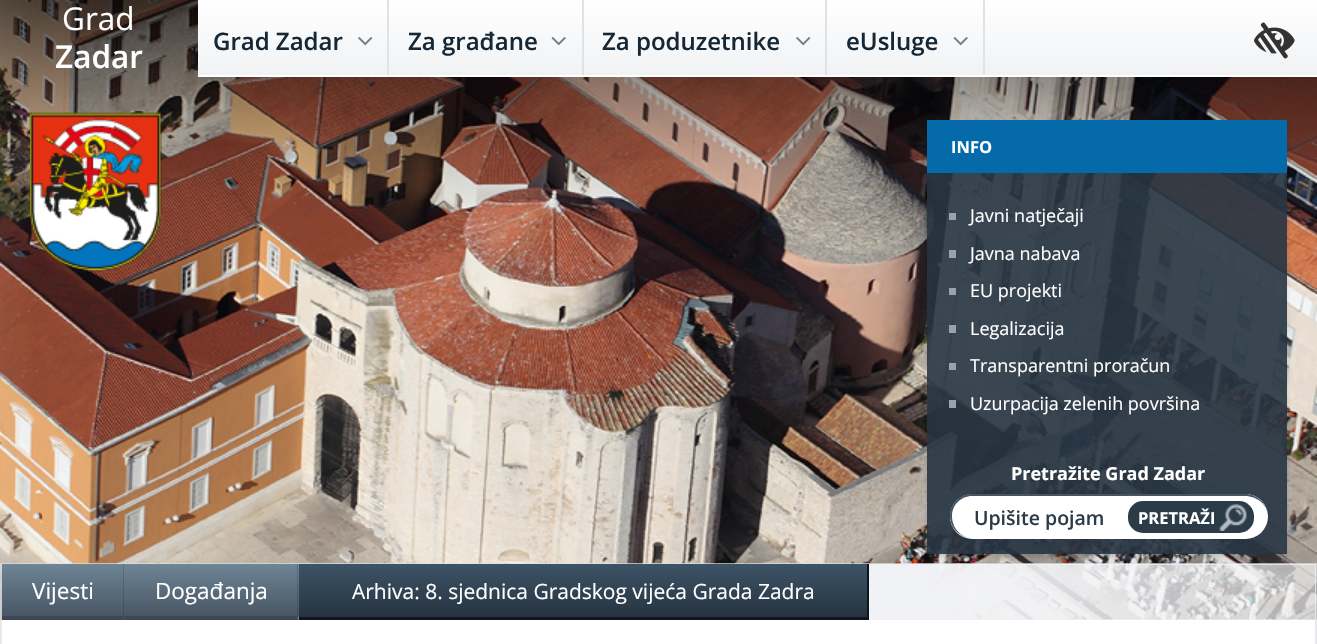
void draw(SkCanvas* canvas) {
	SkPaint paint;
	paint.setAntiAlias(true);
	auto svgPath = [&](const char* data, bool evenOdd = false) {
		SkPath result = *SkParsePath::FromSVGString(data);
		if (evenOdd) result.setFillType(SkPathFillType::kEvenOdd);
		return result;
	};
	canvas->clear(0xffffffff);
	canvas->drawImageRect(SkImages::DeferredFromEncodedData(SkData::MakeFromFileName("img1.png")), SkRect::MakeXYWH(0, 619, 1317, 1), SkSamplingOptions());
	canvas->drawImageRect(SkImages::DeferredFromEncodedData(SkData::MakeFromFileName("img2.png")), SkRect::MakeXYWH(0, 0, 1317, 620), SkSamplingOptions());
	SkFont f1(fontMgr->matchFamilyStyle("Open Sans", SkFontStyle::Normal()), 31.5);
	f1.setSubpixel(true);
	paint.setColor(0xffffffff);
	canvas->drawString("Grad", 62, 30, f1, paint);
	SkFont f2(fontMgr->matchFamilyStyle("Open Sans", SkFontStyle(600, SkFontStyle::kNormal_Width, SkFontStyle::kUpright_Slant)), 31.5);
	f2.setSubpixel(true);
	canvas->drawString("Zadar", 55, 68, f2, paint);
	{
		const SkColor colors[] = {0xffffffff, 0xfff0f2f4};
		const float stops[] = {0, 1};
		const SkPoint ends[] = {{758, 0}, {758, 75}};
		paint.setShader(SkGradientShader::MakeLinear(ends, colors, stops, 2, SkTileMode::kClamp));
		paint.setAlpha(255);
	}
	canvas->drawRect(SkRect::MakeXYWH(198, 0, 1119, 75), paint);
	{
		const SkColor colors[] = {0xffffffff, 0xfff0f2f4};
		const float stops[] = {0, 1};
		const SkPoint ends[] = {{758, 75}, {758, 150}};
		paint.setShader(SkGradientShader::MakeLinear(ends, colors, stops, 2, SkTileMode::kClamp));
		paint.setAlpha(255);
	}
	canvas->drawRect(SkRect::MakeXYWH(198, 75, 1119, 2), paint);
	SkFont f3(fontMgr->matchFamilyStyle("Open Sans", SkFontStyle(600, SkFontStyle::kNormal_Width, SkFontStyle::kUpright_Slant)), 24);
	f3.setSubpixel(true);
	paint.setShader(nullptr);
	paint.setColor(0xff162735);
	canvas->drawString("Grad Zadar", 213, 50, f3, paint);
	canvas->drawImageRect(SkImages::DeferredFromEncodedData(SkData::MakeFromFileName("img3.png")), SkRect::MakeXYWH(358, 37, 15, 9), SkSamplingOptions());
	paint.setColor(0xffe0e2e4);
	canvas->drawRect(SkRect::MakeXYWH(387, 0, 2, 75), paint);
	paint.setColor(0xff162735);
	canvas->drawString("Za građane", 408, 50, f3, paint);
	canvas->drawImageRect(SkImages::DeferredFromEncodedData(SkData::MakeFromFileName("img4.png")), SkRect::MakeXYWH(551, 37, 15, 9), SkSamplingOptions());
	paint.setColor(0xffe0e2e4);
	canvas->drawRect(SkRect::MakeXYWH(582, 0, 2, 75), paint);
	paint.setColor(0xff162735);
	canvas->drawString("Za poduzetnike", 602, 50, f3, paint);
	canvas->drawImageRect(SkImages::DeferredFromEncodedData(SkData::MakeFromFileName("img3.png")), SkRect::MakeXYWH(796, 37, 15, 9), SkSamplingOptions());
	paint.setColor(0xffe0e2e4);
	canvas->drawRect(SkRect::MakeXYWH(825, 0, 2, 75), paint);
	paint.setColor(0xff162735);
	canvas->drawString("eUsluge", 846, 50, f3, paint);
	canvas->drawImageRect(SkImages::DeferredFromEncodedData(SkData::MakeFromFileName("img4.png")), SkRect::MakeXYWH(953, 37, 15, 9), SkSamplingOptions());
	paint.setColor(0xffe0e2e4);
	canvas->drawRect(SkRect::MakeXYWH(983, 0, 2, 75), paint);
	canvas->drawImageRect(SkImages::DeferredFromEncodedData(SkData::MakeFromFileName("img5.png")), SkRect::MakeXYWH(1254, 22, 41, 37), SkSamplingOptions());
	canvas->drawImageRect(SkImages::DeferredFromEncodedData(SkData::MakeFromFileName("img6.png")), SkRect::MakeXYWH(30, 112, 132, 160), SkSamplingOptions());
	paint.setStroke(true);
	paint.setStrokeWidth(2);
	paint.setColor(0xb3dee0e2);
	canvas->drawRect(SkRect::MakeXYWH(1, 564, 1315, 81), paint);
	canvas->save();
	canvas->clipPath(svgPath("M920 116H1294V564H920ZM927 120H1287V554H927Z", true), true);
	paint.setStroke(false);
	paint.setColor(0x21000000);
	paint.setMaskFilter(SkMaskFilter::MakeBlur(kNormal_SkBlurStyle, 2));
	canvas->drawRect(SkRect::MakeXYWH(927, 123, 360, 434), paint);
	paint.setMaskFilter(nullptr);
	canvas->restore();
	paint.setColor(0xe6263441);
	canvas->drawRect(SkRect::MakeXYWH(927, 173, 360, 381), paint);
	paint.setColor(0xff056aa9);
	canvas->drawRect(SkRect::MakeXYWH(927, 120, 360, 53), paint);
	SkFont f4(fontMgr->matchFamilyStyle("Open Sans", SkFontStyle::Bold()), 16.5);
	f4.setSubpixel(true);
	paint.setColor(0xffffffff);
	canvas->drawString("INFO", 951, 153, f4, paint);
	paint.setColor(0xff98a2aa);
	canvas->drawRect(SkRect::MakeXYWH(949, 213, 7, 7), paint);
	SkFont f5(fontMgr->matchFamilyStyle("Open Sans", SkFontStyle::Normal()), 18);
	f5.setSubpixel(true);
	paint.setColor(0xffffffff);
	canvas->drawString("Javni natječaji", 970, 222, f5, paint);
	paint.setColor(0xff98a2aa);
	canvas->drawRect(SkRect::MakeXYWH(949, 250, 7, 8), paint);
	paint.setColor(0xffffffff);
	canvas->drawString("Javna nabava", 970, 260, f5, paint);
	paint.setColor(0xff98a2aa);
	canvas->drawRect(SkRect::MakeXYWH(949, 288, 7, 7), paint);
	paint.setColor(0xffffffff);
	canvas->drawString("EU projekti", 970, 297, f5, paint);
	paint.setColor(0xff98a2aa);
	canvas->drawRect(SkRect::MakeXYWH(949, 325, 7, 8), paint);
	paint.setColor(0xffffffff);
	canvas->drawString("Legalizacija", 970, 335, f5, paint);
	paint.setColor(0xff98a2aa);
	canvas->drawRect(SkRect::MakeXYWH(949, 363, 7, 7), paint);
	paint.setColor(0xffffffff);
	canvas->drawString("Transparentni proračun", 970, 372, f5, paint);
	paint.setColor(0xff98a2aa);
	canvas->drawRect(SkRect::MakeXYWH(949, 400, 7, 8), paint);
	paint.setColor(0xffffffff);
	canvas->drawString("Uzurpacija zelenih površina", 970, 410, f5, paint);
	SkFont f6(fontMgr->matchFamilyStyle("Open Sans", SkFontStyle::Bold()), 18);
	f6.setSubpixel(true);
	canvas->drawString("Pretražite Grad Zadar", 1011, 480, f6, paint);
	canvas->drawRoundRect(SkRect::MakeXYWH(950, 494, 318, 45), 22.5, 22.5, paint);
	paint.setColor(0xff445566);
	canvas->drawPath(svgPath("M972 494H1245C1257 494 1268 504 1268 516C1268 528 1257 538 1245 538H972C960 538 950 528 950 516C950 504 960 494 972 494ZM972 496H1245C1257 496 1268 505 1268 516C1268 528 1257 538 1245 538H972C961 538 952 528 952 516C952 505 961 496 972 496Z", true), paint);
	SkFont f7(fontMgr->matchFamilyStyle("Open Sans", SkFontStyle(600, SkFontStyle::kNormal_Width, SkFontStyle::kUpright_Slant)), 19.5);
	f7.setSubpixel(true);
	paint.setColor(0xff2b3b48);
	canvas->drawString("Upišite pojam", 974, 525, f7, paint);
	canvas->drawRoundRect(SkRect::MakeXYWH(1128, 501, 126, 32), 15, 15, paint);
	canvas->drawImageRect(SkImages::DeferredFromEncodedData(SkData::MakeFromFileName("img7.png")), SkRect::MakeXYWH(1219, 504, 28, 27), SkSamplingOptions());
	paint.setColor(0xffffffff);
	canvas->drawString("PRETRAŽI", 1138, 524, f4, paint);
	{
		const SkColor colors[] = {0xfff1f2f6, 0x99ffffff};
		const float stops[] = {0.7, 1};
		const SkPoint ends[] = {{1.5, 592}, {1316, 592}};
		paint.setShader(SkGradientShader::MakeLinear(ends, colors, stops, 2, SkTileMode::kClamp));
		paint.setAlpha(255);
	}
	canvas->drawRect(SkRect::MakeXYWH(869, 564, 447, 56), paint);
	{
		const SkColor colors[] = {0xff6d8595, 0xff485564};
		const float stops[] = {0, 1};
		const SkPoint ends[] = {{62, 564}, {62, 617}};
		paint.setShader(SkGradientShader::MakeLinear(ends, colors, stops, 2, SkTileMode::kClamp));
		paint.setAlpha(255);
	}
	canvas->drawRect(SkRect::MakeXYWH(2, 564, 123, 53), paint);
	{
		const SkColor colors[] = {0xff6d8595, 0xff485564};
		const float stops[] = {0, 1};
		const SkPoint ends[] = {{62, 617}, {62, 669}};
		paint.setShader(SkGradientShader::MakeLinear(ends, colors, stops, 2, SkTileMode::kClamp));
		paint.setAlpha(255);
	}
	canvas->drawRect(SkRect::MakeXYWH(123, 617, 2, 3), paint);
	paint.setShader(nullptr);
	paint.setColor(0x26000000);
	canvas->drawPath(svgPath("M124 564V620L123 616V564Z"), paint);
	paint.setColor(0xff3c4752);
	canvas->drawPath(svgPath("M124 620H2V616H123Z"), paint);
	SkFont f8(fontMgr->matchFamilyStyle("Open Sans", SkFontStyle::Normal()), 22.5);
	f8.setSubpixel(true);
	paint.setColor(0xffffffff);
	canvas->drawString("Vijesti", 32, 599, f8, paint);
	{
		const SkColor colors[] = {0xff6d8595, 0xff485564};
		const float stops[] = {0, 1};
		const SkPoint ends[] = {{211, 564}, {211, 617}};
		paint.setShader(SkGradientShader::MakeLinear(ends, colors, stops, 2, SkTileMode::kClamp));
		paint.setAlpha(255);
	}
	canvas->drawRect(SkRect::MakeXYWH(125, 564, 174, 53), paint);
	{
		const SkColor colors[] = {0xff6d8595, 0xff485564};
		const float stops[] = {0, 1};
		const SkPoint ends[] = {{211, 617}, {211, 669}};
		paint.setShader(SkGradientShader::MakeLinear(ends, colors, stops, 2, SkTileMode::kClamp));
		paint.setAlpha(255);
	}
	canvas->drawRect(SkRect::MakeXYWH(297, 617, 2, 3), paint);
	paint.setShader(nullptr);
	paint.setColor(0x26000000);
	canvas->drawPath(svgPath("M298 564V620L297 616V564Z"), paint);
	paint.setColor(0xff3c4752);
	canvas->drawPath(svgPath("M298 620H124V616H297Z"), paint);
	paint.setColor(0xffffffff);
	canvas->drawString("Događanja", 155, 599, f8, paint);
	{
		const SkColor colors[] = {0xff3d5367, 0xff263440};
		const float stops[] = {0, 1};
		const SkPoint ends[] = {{583, 564}, {583, 617}};
		paint.setShader(SkGradientShader::MakeLinear(ends, colors, stops, 2, SkTileMode::kClamp));
		paint.setAlpha(255);
	}
	canvas->drawRect(SkRect::MakeXYWH(299, 564, 568, 53), paint);
	paint.setShader(nullptr);
	paint.setColor(0xff0e151d);
	canvas->drawRect(SkRect::MakeXYWH(867, 564, 2, 56), paint);
	canvas->drawRect(SkRect::MakeXYWH(299, 617, 570, 3), paint);
	SkFont f9(fontMgr->matchFamilyStyle("Open Sans", SkFontStyle::Normal()), 21);
	f9.setSubpixel(true);
	paint.setColor(0xffffffff);
	canvas->drawString("Arhiva: 8. sjednica Gradskog vijeća Grada Zadra", 352, 599, f9, paint);
}
